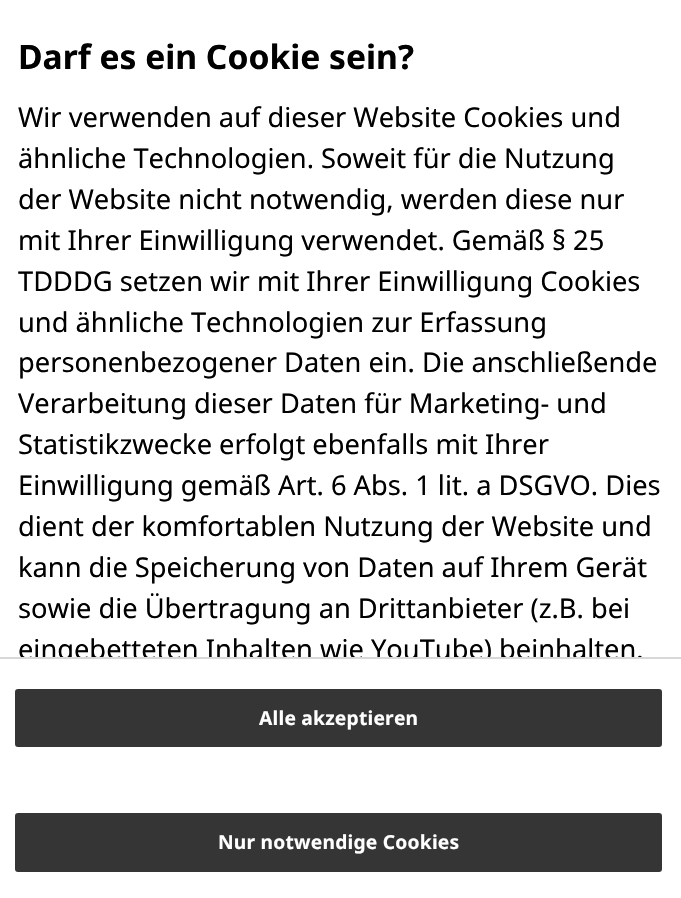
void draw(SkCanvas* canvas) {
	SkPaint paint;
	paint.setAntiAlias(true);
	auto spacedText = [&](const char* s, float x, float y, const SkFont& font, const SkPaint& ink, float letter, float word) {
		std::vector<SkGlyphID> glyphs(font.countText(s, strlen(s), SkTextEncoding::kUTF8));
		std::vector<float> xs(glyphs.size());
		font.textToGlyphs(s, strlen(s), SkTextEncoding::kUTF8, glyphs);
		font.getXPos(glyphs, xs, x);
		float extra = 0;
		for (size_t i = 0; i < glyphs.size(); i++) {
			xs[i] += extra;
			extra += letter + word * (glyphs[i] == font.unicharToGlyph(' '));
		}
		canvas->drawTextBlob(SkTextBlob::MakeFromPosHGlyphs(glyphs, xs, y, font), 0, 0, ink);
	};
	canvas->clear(0xffffffff);
	SkFont f1(fontMgr->matchFamilyStyle("Noto Sans", SkFontStyle::Bold()), 33.6);
	f1.setSubpixel(true);
	paint.setColor(0xff000000);
	canvas->drawString("Darf es ein Cookie sein?", 18, 69, f1, paint);
	SkFont f2(fontMgr->matchFamilyStyle("Noto Sans", SkFontStyle::Normal()), 27.25);
	f2.setSubpixel(true);
	canvas->drawString("Wir verwenden auf dieser Website Cookies und", 18, 127, f2, paint);
	canvas->drawString("ähnliche Technologien. Soweit für die Nutzung", 18, 168, f2, paint);
	canvas->drawString("der Website nicht notwendig, werden diese nur", 18, 209, f2, paint);
	canvas->drawString("mit Ihrer Einwilligung verwendet. Gemäß § 25", 18, 250, f2, paint);
	canvas->drawString("TDDDG setzen wir mit Ihrer Einwilligung Cookies", 18, 291, f2, paint);
	canvas->drawString("und ähnliche Technologien zur Erfassung", 18, 332, f2, paint);
	canvas->drawString("personenbezogener Daten ein. Die anschließende", 18, 372, f2, paint);
	canvas->drawString("Verarbeitung dieser Daten für Marketing- und", 18, 413, f2, paint);
	canvas->drawString("Statistikzwecke erfolgt ebenfalls mit Ihrer", 18, 454, f2, paint);
	canvas->drawString("Einwilligung gemäß Art. 6 Abs. 1 lit. a DSGVO. Dies", 18, 495, f2, paint);
	canvas->drawString("dient der komfortablen Nutzung der Website und", 18, 536, f2, paint);
	canvas->drawString("kann die Speicherung von Daten auf Ihrem Gerät", 18, 577, f2, paint);
	canvas->drawString("sowie die Übertragung an Drittanbieter (z.B. bei", 18, 618, f2, paint);
	canvas->save();
	canvas->clipRect(SkRect::MakeXYWH(15, 17, 665, 642));
	canvas->drawString("eingebetteten Inhalten wie YouTube) beinhalten.", 18, 659, f2, paint);
	canvas->restore();
	paint.setColor(0xffd8d8d8);
	canvas->drawRect(SkRect::MakeXYWH(0, 657, 681, 2), paint);
	paint.setColor(0xff353535);
	canvas->drawRoundRect(SkRect::MakeXYWH(16, 690, 645, 56), 2, 2, paint);
	paint.setStroke(true);
	paint.setStrokeWidth(2);
	canvas->drawRoundRect(SkRect::MakeXYWH(16, 690, 645, 56), 2, 2, paint);
	SkFont f3(fontMgr->matchFamilyStyle("Noto Sans", SkFontStyle::Bold()), 19.25);
	f3.setSubpixel(true);
	paint.setStroke(false);
	paint.setColor(0xffffffff);
	spacedText("Alle akzeptieren", 259, 725, f3, paint, 0.2, 0);
	paint.setColor(0xff353535);
	canvas->drawRoundRect(SkRect::MakeXYWH(16, 814, 645, 57), 2, 2, paint);
	paint.setStroke(true);
	canvas->drawRoundRect(SkRect::MakeXYWH(16, 814, 645, 57), 2, 2, paint);
	paint.setStroke(false);
	paint.setColor(0xffffffff);
	spacedText("Nur notwendige Cookies", 218, 849, f3, paint, 0.2, 0);
}
